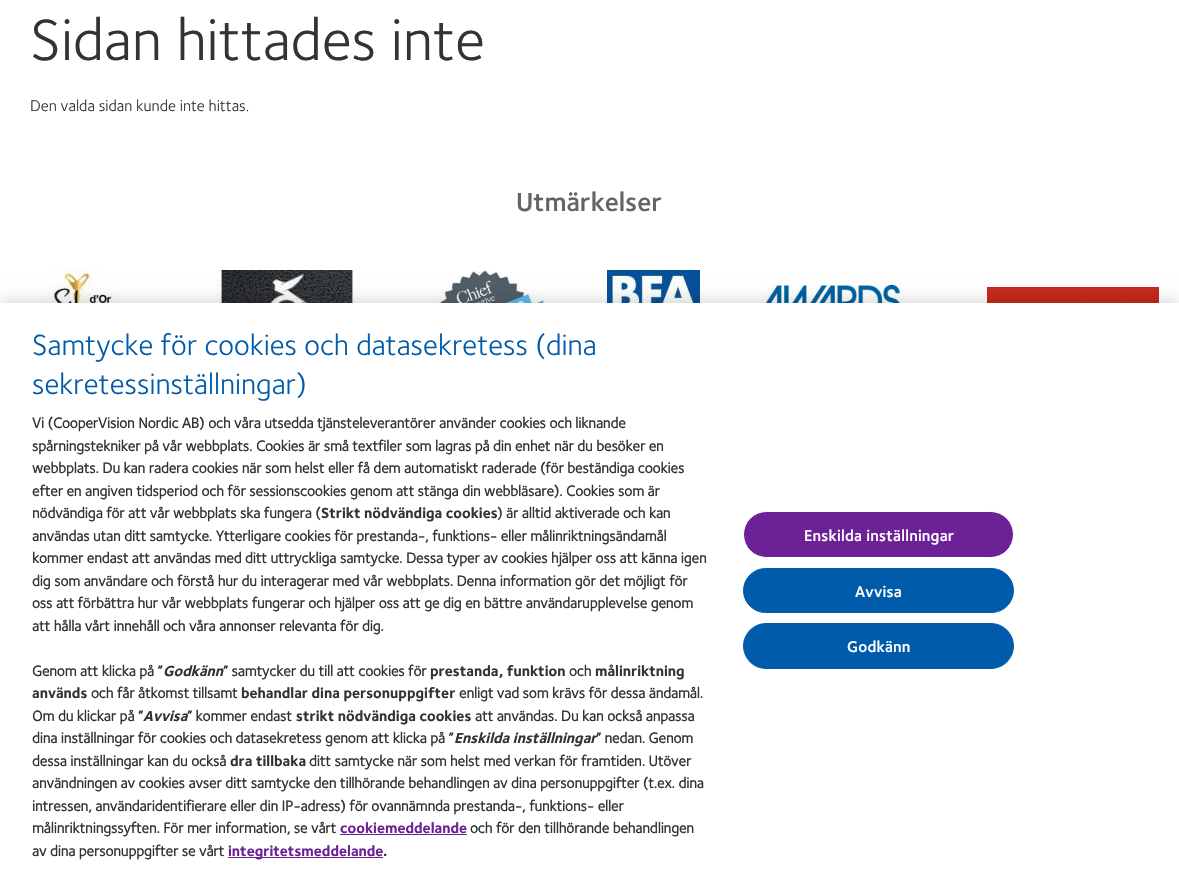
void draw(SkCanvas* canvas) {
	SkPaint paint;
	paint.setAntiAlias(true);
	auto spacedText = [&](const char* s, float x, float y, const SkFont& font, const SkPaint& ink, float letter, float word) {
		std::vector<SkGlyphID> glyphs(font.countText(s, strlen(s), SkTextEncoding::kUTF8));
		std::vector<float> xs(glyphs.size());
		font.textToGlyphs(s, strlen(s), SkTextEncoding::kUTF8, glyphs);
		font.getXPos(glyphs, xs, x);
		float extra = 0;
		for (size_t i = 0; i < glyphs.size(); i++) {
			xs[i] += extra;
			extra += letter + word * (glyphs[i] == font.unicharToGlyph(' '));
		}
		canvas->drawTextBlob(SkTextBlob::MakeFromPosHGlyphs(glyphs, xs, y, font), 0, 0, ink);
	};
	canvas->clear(0xffffffff);
	SkFont f1(fontMgr->matchFamilyStyle("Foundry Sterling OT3", SkFontStyle::Normal()), 60);
	f1.setSubpixel(true);
	paint.setColor(0xff333333);
	canvas->drawString("Sidan hittades inte", 30, 60, f1, paint);
	SkFont f2(fontMgr->matchFamilyStyle("Foundry Sterling OT3", SkFontStyle::Normal()), 16);
	f2.setSubpixel(true);
	canvas->drawString("Den valda sidan kunde inte hittas.", 30, 111, f2, paint);
	SkFont f3(fontMgr->matchFamilyStyle("Foundry Sterling OT3", SkFontStyle(600, SkFontStyle::kNormal_Width, SkFontStyle::kUpright_Slant)), 27);
	f3.setSubpixel(true);
	paint.setColor(0xff636466);
	canvas->drawString("Utmärkelser", 516, 211, f3, paint);
	canvas->drawImageRect(SkImages::DeferredFromEncodedData(SkData::MakeFromFileName("img1.png")), SkRect::MakeXYWH(22, 270, 118, 33), SkSamplingOptions());
	canvas->drawImageRect(SkImages::DeferredFromEncodedData(SkData::MakeFromFileName("img2.png")), SkRect::MakeXYWH(216, 270, 143, 33), SkSamplingOptions());
	canvas->drawImageRect(SkImages::DeferredFromEncodedData(SkData::MakeFromFileName("img3.png")), SkRect::MakeXYWH(428, 270, 125, 33), SkSamplingOptions());
	canvas->drawImageRect(SkImages::DeferredFromEncodedData(SkData::MakeFromFileName("img4.png")), SkRect::MakeXYWH(607, 270, 93, 33), SkSamplingOptions());
	canvas->drawImageRect(SkImages::DeferredFromEncodedData(SkData::MakeFromFileName("img5.png")), SkRect::MakeXYWH(757, 284, 172, 19), SkSamplingOptions());
	canvas->drawImageRect(SkImages::DeferredFromEncodedData(SkData::MakeFromFileName("img6.png")), SkRect::MakeXYWH(987, 287, 172, 16), SkSamplingOptions());
	paint.setColor(0x33000000);
	paint.setMaskFilter(SkMaskFilter::MakeBlur(kNormal_SkBlurStyle, 9));
	canvas->drawRect(SkRect::MakeXYWH(0, 303, 1179, 568), paint);
	paint.setMaskFilter(nullptr);
	paint.setColor(0xffffffff);
	canvas->drawRect(SkRect::MakeXYWH(0, 303, 1179, 568), paint);
	SkFont f4(fontMgr->matchFamilyStyle("Foundry Sterling OT3", SkFontStyle::Normal()), 30);
	f4.setSubpixel(true);
	paint.setColor(0xff005cab);
	canvas->drawString("Samtycke för cookies och datasekretess (dina", 32, 355, f4, paint);
	canvas->drawString("sekretessinställningar)", 32, 394, f4, paint);
	SkFont f5(fontMgr->matchFamilyStyle("Foundry Sterling OT3", SkFontStyle::Bold()), 15);
	f5.setSubpixel(true);
	paint.setColor(0xff333333);
	canvas->drawString("Vi (CooperVision Nordic AB) och våra utsedda tjänsteleverantörer använder cookies och liknande", 32, 428, f5, paint);
	canvas->drawString("spårningstekniker på vår webbplats. Cookies är små textfiler som lagras på din enhet när du besöker en", 32, 451, f5, paint);
	canvas->drawString("webbplats. Du kan radera cookies när som helst eller få dem automatiskt raderade (för beständiga cookies", 32, 473, f5, paint);
	canvas->drawString("efter en angiven tidsperiod och för sessionscookies genom att stänga din webbläsare). Cookies som är", 32, 496, f5, paint);
	canvas->drawString("nödvändiga för att vår webbplats ska fungera (", 32, 518, f5, paint);
	SkFont f6(fontMgr->matchFamilyStyle("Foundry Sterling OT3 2", SkFontStyle::Bold()), 15);
	f6.setSubpixel(true);
	canvas->drawString("Strikt nödvändiga cookies", 321, 518, f6, paint);
	canvas->drawString(") är alltid aktiverade och kan", 497, 518, f5, paint);
	canvas->drawString("användas utan ditt samtycke. Ytterligare cookies för prestanda-, funktions- eller målinriktningsändamål", 32, 541, f5, paint);
	canvas->drawString("kommer endast att användas med ditt uttryckliga samtycke. Dessa typer av cookies hjälper oss att känna igen", 32, 563, f5, paint);
	canvas->drawString("dig som användare och förstå hur du interagerar med vår webbplats. Denna information gör det möjligt för", 32, 586, f5, paint);
	canvas->drawString("oss att förbättra hur vår webbplats fungerar och hjälper oss att ge dig en bättre användarupplevelse genom", 32, 608, f5, paint);
	canvas->drawString("att hålla vårt innehåll och våra annonser relevanta för dig.", 32, 631, f5, paint);
	canvas->drawString("Genom att klicka på ”", 32, 676, f5, paint);
	SkFont f7(fontMgr->matchFamilyStyle("Foundry Sterling OT3", SkFontStyle::BoldItalic()), 15);
	f7.setSubpixel(true);
	canvas->drawString("Godkänn", 163, 676, f7, paint);
	canvas->drawString("” samtycker du till att cookies för", 223, 676, f5, paint);
	canvas->drawString("prestanda, funktion", 430, 676, f6, paint);
	canvas->drawString("och", 569, 676, f5, paint);
	canvas->drawString("målinriktning", 595, 676, f6, paint);
	canvas->drawString("används", 32, 698, f6, paint);
	canvas->drawString("och får åtkomst tillsamt", 91, 698, f5, paint);
	canvas->drawString("behandlar dina personuppgifter", 241, 698, f6, paint);
	canvas->drawString("enligt vad som krävs för dessa ändamål.", 459, 698, f5, paint);
	canvas->drawString("Om du klickar på ”", 32, 721, f5, paint);
	canvas->drawString("Avvisa", 143, 721, f7, paint);
	canvas->drawString("” kommer endast", 187, 721, f5, paint);
	canvas->drawString("strikt nödvändiga cookies", 296, 721, f6, paint);
	canvas->drawString("att användas. Du kan också anpassa", 475, 721, f5, paint);
	canvas->drawString("dina inställningar för cookies och datasekretess genom att klicka på ”", 32, 743, f5, paint);
	canvas->drawString("Enskilda inställningar", 454, 743, f7, paint);
	canvas->drawString("” nedan. Genom", 596, 743, f5, paint);
	canvas->drawString("dessa inställningar kan du också", 32, 766, f5, paint);
	canvas->drawString("dra tillbaka", 230, 766, f6, paint);
	canvas->drawString("ditt samtycke när som helst med verkan för framtiden. Utöver", 309, 766, f5, paint);
	canvas->drawString("användningen av cookies avser ditt samtycke den tillhörande behandlingen av dina personuppgifter (t.ex. dina", 32, 788, f5, paint);
	canvas->drawString("intressen, användaridentifierare eller din IP-adress) för ovannämnda prestanda-, funktions- eller", 32, 811, f5, paint);
	canvas->drawString("målinriktningssyften. För mer information, se vårt", 32, 833, f5, paint);
	paint.setColor(0xff6c2196);
	canvas->drawString("cookiemeddelande", 340, 833, f6, paint);
	canvas->drawRect(SkRect::MakeXYWH(340, 834, 127, 1), paint);
	paint.setColor(0xff333333);
	canvas->drawString("och för den tillhörande behandlingen", 470, 833, f5, paint);
	canvas->drawString("av dina personuppgifter se vårt", 32, 856, f5, paint);
	paint.setColor(0xff6c2196);
	canvas->drawRect(SkRect::MakeXYWH(228, 857, 155, 1), paint);
	canvas->drawString("integritetsmeddelande", 228, 856, f6, paint);
	paint.setColor(0xff333333);
	canvas->drawString(".", 383, 856, f6, paint);
	paint.setColor(0xff6c2196);
	canvas->drawRoundRect(SkRect::MakeXYWH(743.5, 511.5, 270, 46), 23, 23, paint);
	paint.setStroke(true);
	paint.setStrokeWidth(1);
	paint.setColor(0xffffffff);
	canvas->drawRoundRect(SkRect::MakeXYWH(743.5, 511.5, 270, 46), 23, 23, paint);
	SkFont f8(fontMgr->matchFamilyStyle("Foundry Sterling OT3", SkFontStyle(600, SkFontStyle::kNormal_Width, SkFontStyle::kUpright_Slant)), 16);
	f8.setSubpixel(true);
	paint.setStroke(false);
	spacedText("Enskilda inställningar", 804, 541, f8, paint, 0.2, 0);
	paint.setColor(0xff005cab);
	canvas->drawRoundRect(SkRect::MakeXYWH(743.5, 568.5, 270, 44), 22, 22, paint);
	paint.setStroke(true);
	canvas->drawRoundRect(SkRect::MakeXYWH(743.5, 568.5, 270, 44), 22, 22, paint);
	paint.setStroke(false);
	paint.setColor(0xffffffff);
	spacedText("Avvisa", 855, 597, f8, paint, 0.2, 0);
	paint.setColor(0xff005cab);
	canvas->drawRoundRect(SkRect::MakeXYWH(743.5, 623.5, 270, 45), 22.5, 22.5, paint);
	paint.setStroke(true);
	canvas->drawRoundRect(SkRect::MakeXYWH(743.5, 623.5, 270, 45), 22.5, 22.5, paint);
	paint.setStroke(false);
	paint.setColor(0xffffffff);
	spacedText("Godkänn", 847, 652, f8, paint, 0.2, 0);
}
